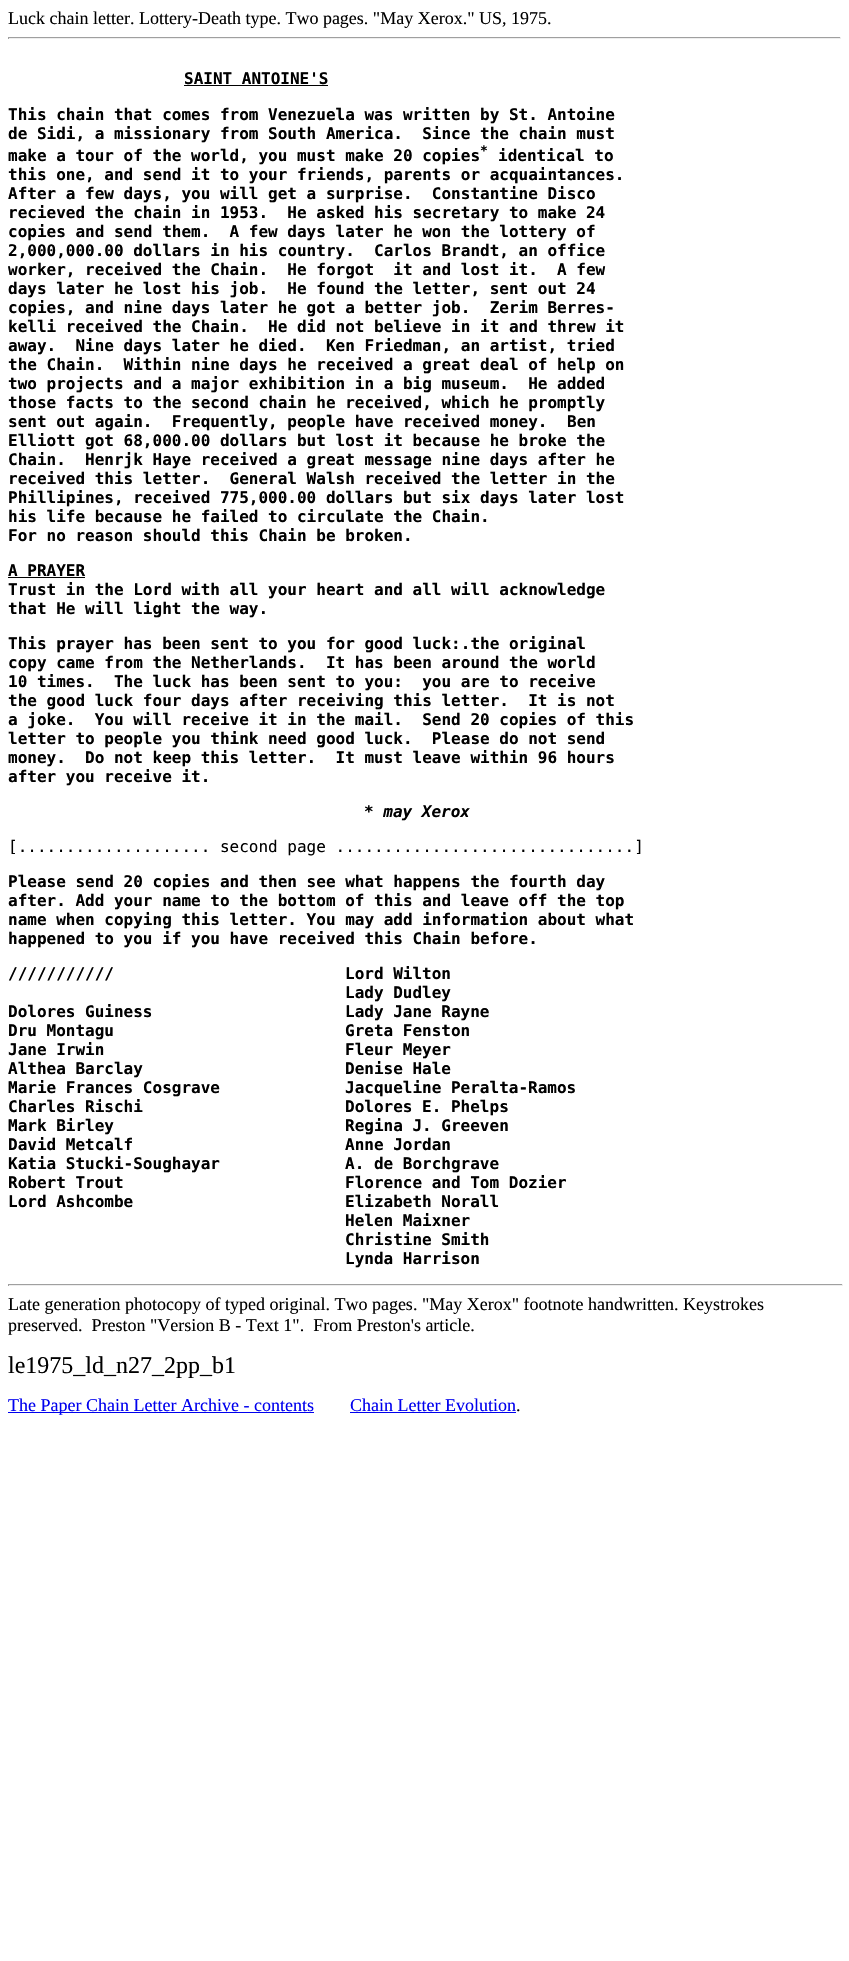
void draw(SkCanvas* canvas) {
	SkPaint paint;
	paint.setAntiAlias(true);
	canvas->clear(0xffffffff);
	SkFont f1(fontMgr->matchFamilyStyle("Liberation Serif", SkFontStyle::Normal()), 18);
	f1.setSubpixel(true);
	paint.setColor(0xff000000);
	canvas->drawString("Luck chain letter. Lottery-Death type. Two pages. \"May Xerox.\" US, 1975.", 8, 24, f1, paint);
	paint.setColor(0xff9f9f9f);
	canvas->drawRect(SkRect::MakeXYWH(8, 37, 833, 1), paint);
	paint.setColor(0xffeeeeee);
	canvas->drawRect(SkRect::MakeXYWH(840, 37, 1, 2), paint);
	canvas->drawRect(SkRect::MakeXYWH(8, 38, 833, 1), paint);
	paint.setColor(0xff9f9f9f);
	canvas->drawRect(SkRect::MakeXYWH(8, 37, 1, 2), paint);
	SkFont f2(fontMgr->matchFamilyStyle("DejaVu Sans Mono", SkFontStyle::Bold()), 16);
	f2.setSubpixel(true);
	paint.setColor(0xff000000);
	canvas->drawString("SAINT ANTOINE'S", 184, 84, f2, paint);
	canvas->drawRect(SkRect::MakeXYWH(184, 85, 144, 1), paint);
	canvas->drawString("This chain that comes from Venezuela was written by St. Antoine", 8, 120, f2, paint);
	canvas->drawString("de Sidi, a missionary from South America.  Since the chain must", 8, 139, f2, paint);
	canvas->drawString("make a tour of the world, you must make 20 copies", 8, 161, f2, paint);
	SkFont f3(fontMgr->matchFamilyStyle("DejaVu Sans Mono", SkFontStyle::Bold()), 13);
	f3.setSubpixel(true);
	canvas->drawString("*", 480, 155, f3, paint);
	canvas->drawString("identical to", 498, 161, f2, paint);
	canvas->drawString("this one, and send it to your friends, parents or acquaintances.", 8, 180, f2, paint);
	canvas->drawString("After a few days, you will get a surprise.  Constantine Disco", 8, 199, f2, paint);
	canvas->drawString("recieved the chain in 1953.  He asked his secretary to make 24", 8, 218, f2, paint);
	canvas->drawString("copies and send them.  A few days later he won the lottery of", 8, 237, f2, paint);
	canvas->drawString("2,000,000.00 dollars in his country.  Carlos Brandt, an office", 8, 256, f2, paint);
	canvas->drawString("worker, received the Chain.  He forgot  it and lost it.", 8, 275, f2, paint);
	canvas->drawString("A few", 557, 275, f2, paint);
	canvas->drawString("days later he lost his job.  He found the letter, sent out 24", 8, 294, f2, paint);
	canvas->drawString("copies, and nine days later he got a better job.  Zerim Berres-", 8, 313, f2, paint);
	canvas->drawString("kelli received the Chain.  He did not believe in it and threw it", 8, 332, f2, paint);
	canvas->drawString("away.  Nine days later he died.  Ken Friedman, an artist, tried", 8, 351, f2, paint);
	canvas->drawString("the Chain.  Within nine days he received a great deal of help on", 8, 370, f2, paint);
	canvas->drawString("two projects and a major exhibition in a big museum.  He added", 8, 389, f2, paint);
	canvas->drawString("those facts to the second chain he received, which he promptly", 8, 408, f2, paint);
	canvas->drawString("sent out again.  Frequently, people have received money.", 8, 427, f2, paint);
	canvas->drawString("Ben", 567, 427, f2, paint);
	canvas->drawString("Elliott got 68,000.00 dollars but lost it because he broke the", 8, 446, f2, paint);
	canvas->drawString("Chain.  Henrjk Haye received a great message nine days after he", 8, 465, f2, paint);
	canvas->drawString("received this letter.  General Walsh received the letter in the", 8, 484, f2, paint);
	canvas->drawString("Phillipines, received 775,000.00 dollars but six days later lost", 8, 503, f2, paint);
	canvas->drawString("his life because he failed to circulate the Chain.", 8, 522, f2, paint);
	canvas->drawString("For no reason should this Chain be broken.", 8, 541, f2, paint);
	canvas->drawString("A PRAYER", 8, 576, f2, paint);
	canvas->drawRect(SkRect::MakeXYWH(8, 577, 77, 1), paint);
	canvas->drawString("Trust in the Lord with all your heart and all will acknowledge", 8, 595, f2, paint);
	canvas->drawString("that He will light the way.", 8, 614, f2, paint);
	canvas->drawString("This prayer has been sent to you for good luck:.the original", 8, 649, f2, paint);
	canvas->drawString("copy came from the Netherlands.  It has been around the world", 8, 668, f2, paint);
	canvas->drawString("10 times.  The luck has been sent to you:  you are to receive", 8, 687, f2, paint);
	canvas->drawString("the good luck four days after receiving this letter.  It is not", 8, 706, f2, paint);
	canvas->drawString("a joke.  You will receive it in the mail.  Send 20 copies of this", 8, 725, f2, paint);
	canvas->drawString("letter to people you think need good luck.  Please do not send", 8, 744, f2, paint);
	canvas->drawString("money.  Do not keep this letter.  It must leave within 96 hours", 8, 763, f2, paint);
	canvas->drawString("after you receive it.", 8, 782, f2, paint);
	SkFont f4(fontMgr->matchFamilyStyle("DejaVu Sans Mono", SkFontStyle::BoldItalic()), 16);
	f4.setSubpixel(true);
	canvas->drawString("* may Xerox", 364, 817, f4, paint);
	SkFont f5(fontMgr->matchFamilyStyle("DejaVu Sans Mono", SkFontStyle::Normal()), 16);
	f5.setSubpixel(true);
	canvas->drawString("[.................... second page ...............................]", 8, 852, f5, paint);
	canvas->drawString("Please send 20 copies and then see what happens the fourth day", 8, 887, f2, paint);
	canvas->drawString("after. Add your name to the bottom of this and leave off the top", 8, 906, f2, paint);
	canvas->drawString("name when copying this letter. You may add information about what", 8, 925, f2, paint);
	canvas->drawString("happened to you if you have received this Chain before.", 8, 944, f2, paint);
	canvas->drawString("///////////", 8, 979, f2, paint);
	canvas->drawString("Lord Wilton", 345, 979, f2, paint);
	canvas->drawString("Lady Dudley", 345, 998, f2, paint);
	canvas->drawString("Dolores Guiness", 8, 1017, f2, paint);
	canvas->drawString("Lady Jane Rayne", 345, 1017, f2, paint);
	canvas->drawString("Dru Montagu", 8, 1036, f2, paint);
	canvas->drawString("Greta Fenston", 345, 1036, f2, paint);
	canvas->drawString("Jane Irwin", 8, 1055, f2, paint);
	canvas->drawString("Fleur Meyer", 345, 1055, f2, paint);
	canvas->drawString("Althea Barclay", 8, 1074, f2, paint);
	canvas->drawString("Denise Hale", 345, 1074, f2, paint);
	canvas->drawString("Marie Frances Cosgrave", 8, 1093, f2, paint);
	canvas->drawString("Jacqueline Peralta-Ramos", 345, 1093, f2, paint);
	canvas->drawString("Charles Rischi", 8, 1112, f2, paint);
	canvas->drawString("Dolores E. Phelps", 345, 1112, f2, paint);
	canvas->drawString("Mark Birley", 8, 1131, f2, paint);
	canvas->drawString("Regina J. Greeven", 345, 1131, f2, paint);
	canvas->drawString("David Metcalf", 8, 1150, f2, paint);
	canvas->drawString("Anne Jordan", 345, 1150, f2, paint);
	canvas->drawString("Katia Stucki-Soughayar", 8, 1169, f2, paint);
	canvas->drawString("A. de Borchgrave", 345, 1169, f2, paint);
	canvas->drawString("Robert Trout", 8, 1188, f2, paint);
	canvas->drawString("Florence and Tom Dozier", 345, 1188, f2, paint);
	canvas->drawString("Lord Ashcombe", 8, 1207, f2, paint);
	canvas->drawString("Elizabeth Norall", 345, 1207, f2, paint);
	canvas->drawString("Helen Maixner", 345, 1226, f2, paint);
	canvas->drawString("Christine Smith", 345, 1245, f2, paint);
	canvas->drawString("Lynda Harrison", 345, 1264, f2, paint);
	paint.setColor(0xff9f9f9f);
	canvas->drawRect(SkRect::MakeXYWH(8, 1284, 835, 1), paint);
	paint.setColor(0xffeeeeee);
	canvas->drawRect(SkRect::MakeXYWH(842, 1284, 1, 2), paint);
	canvas->drawRect(SkRect::MakeXYWH(8, 1285, 835, 1), paint);
	paint.setColor(0xff9f9f9f);
	canvas->drawRect(SkRect::MakeXYWH(8, 1284, 1, 2), paint);
	paint.setColor(0xff000000);
	canvas->drawString("Late generation photocopy of typed original. Two pages. \"May Xerox\" footnote handwritten. Keystrokes", 8, 1310, f1, paint);
	canvas->drawString("preserved.  Preston \"Version B - Text 1\".  From Preston's article.", 8, 1331, f1, paint);
	SkFont f6(fontMgr->matchFamilyStyle("Liberation Serif", SkFontStyle::Normal()), 24);
	f6.setSubpixel(true);
	canvas->drawString("le1975_ld_n27_2pp_b1", 8, 1373, f6, paint);
	paint.setColor(0xff0000ee);
	canvas->drawRect(SkRect::MakeXYWH(8, 1412, 306, 1), paint);
	canvas->drawString("The Paper Chain Letter Archive - contents", 8, 1411, f1, paint);
	canvas->drawString("Chain Letter Evolution", 350, 1411, f1, paint);
	paint.setColor(0xff000000);
	canvas->drawString(".", 516, 1411, f1, paint);
	paint.setColor(0xff0000ee);
	canvas->drawRect(SkRect::MakeXYWH(350, 1412, 166, 1), paint);
}
